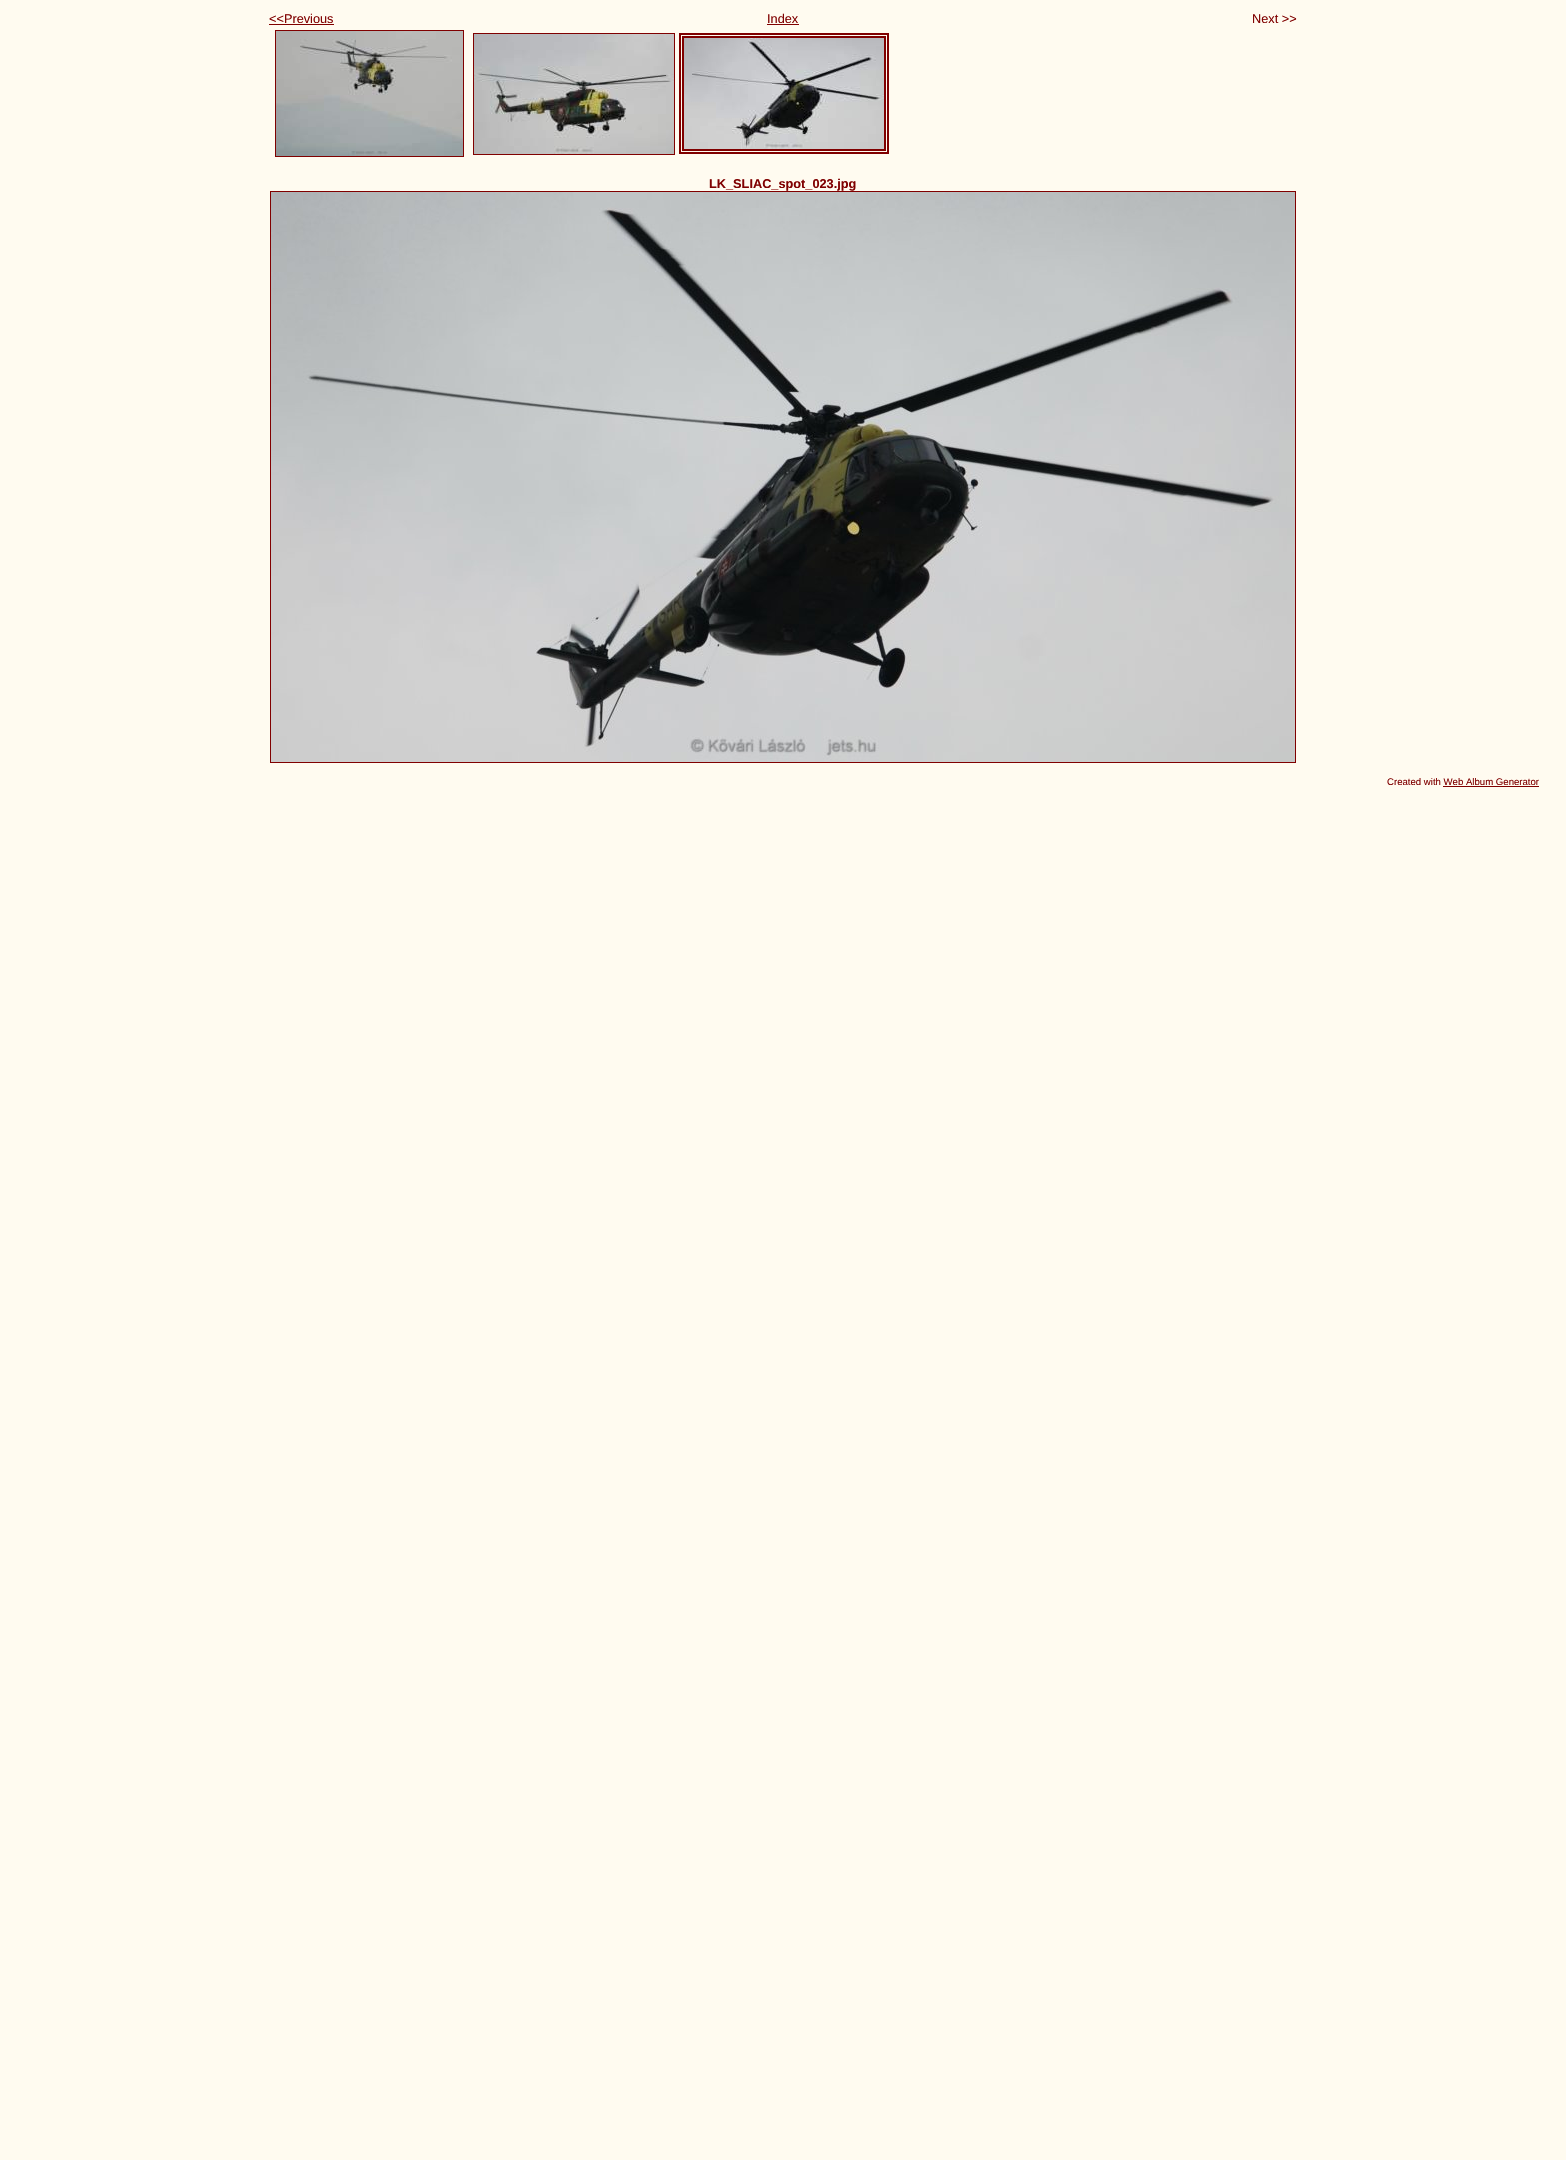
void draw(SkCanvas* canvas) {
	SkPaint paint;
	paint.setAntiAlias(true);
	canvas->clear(0xfffffbf0);
	SkFont f1(fontMgr->matchFamilyStyle("Liberation Sans", SkFontStyle::Normal()), 12.75);
	f1.setSubpixel(true);
	paint.setColor(0xff800000);
	canvas->drawString("<<Previous", 269, 23, f1, paint);
	canvas->drawRect(SkRect::MakeXYWH(269, 24, 65, 1), paint);
	canvas->drawString("Index", 767, 23, f1, paint);
	canvas->drawRect(SkRect::MakeXYWH(767, 24, 32, 1), paint);
	canvas->drawString("Next >>", 1252, 23, f1, paint);
	paint.setStroke(true);
	paint.setStrokeWidth(1);
	canvas->drawRect(SkRect::MakeXYWH(275.5, 30.5, 188, 126), paint);
	canvas->drawImageRect(SkImages::DeferredFromEncodedData(SkData::MakeFromFileName("img1.png")), SkRect::MakeXYWH(276, 31, 187, 125), SkSamplingOptions());
	canvas->drawRect(SkRect::MakeXYWH(473.5, 33.5, 201, 121), paint);
	canvas->drawImageRect(SkImages::DeferredFromEncodedData(SkData::MakeFromFileName("img2.png")), SkRect::MakeXYWH(474, 34, 200, 120), SkSamplingOptions());
	paint.setStrokeWidth(2);
	canvas->drawRect(SkRect::MakeXYWH(680, 34, 208, 119), paint);
	canvas->drawRect(SkRect::MakeXYWH(683, 37, 202, 113), paint);
	canvas->drawImageRect(SkImages::DeferredFromEncodedData(SkData::MakeFromFileName("img3.png")), SkRect::MakeXYWH(684, 38, 200, 111), SkSamplingOptions());
	SkFont f2(fontMgr->matchFamilyStyle("Liberation Sans", SkFontStyle::Bold()), 12.75);
	f2.setSubpixel(true);
	paint.setStroke(false);
	canvas->drawString("LK_SLIAC_spot_023.jpg", 709, 188, f2, paint);
	paint.setStroke(true);
	paint.setStrokeWidth(1);
	canvas->drawRect(SkRect::MakeXYWH(270.5, 191.5, 1025, 571), paint);
	canvas->drawImageRect(SkImages::DeferredFromEncodedData(SkData::MakeFromFileName("img4.png")), SkRect::MakeXYWH(271, 192, 1024, 570), SkSamplingOptions());
	SkFont f3(fontMgr->matchFamilyStyle("Liberation Sans", SkFontStyle::Normal()), 9.6);
	f3.setSubpixel(true);
	paint.setStroke(false);
	canvas->drawString("Created with Web Album Generator", 1387, 785, f3, paint);
	canvas->drawRect(SkRect::MakeXYWH(1443, 786, 96, 1), paint);
}
